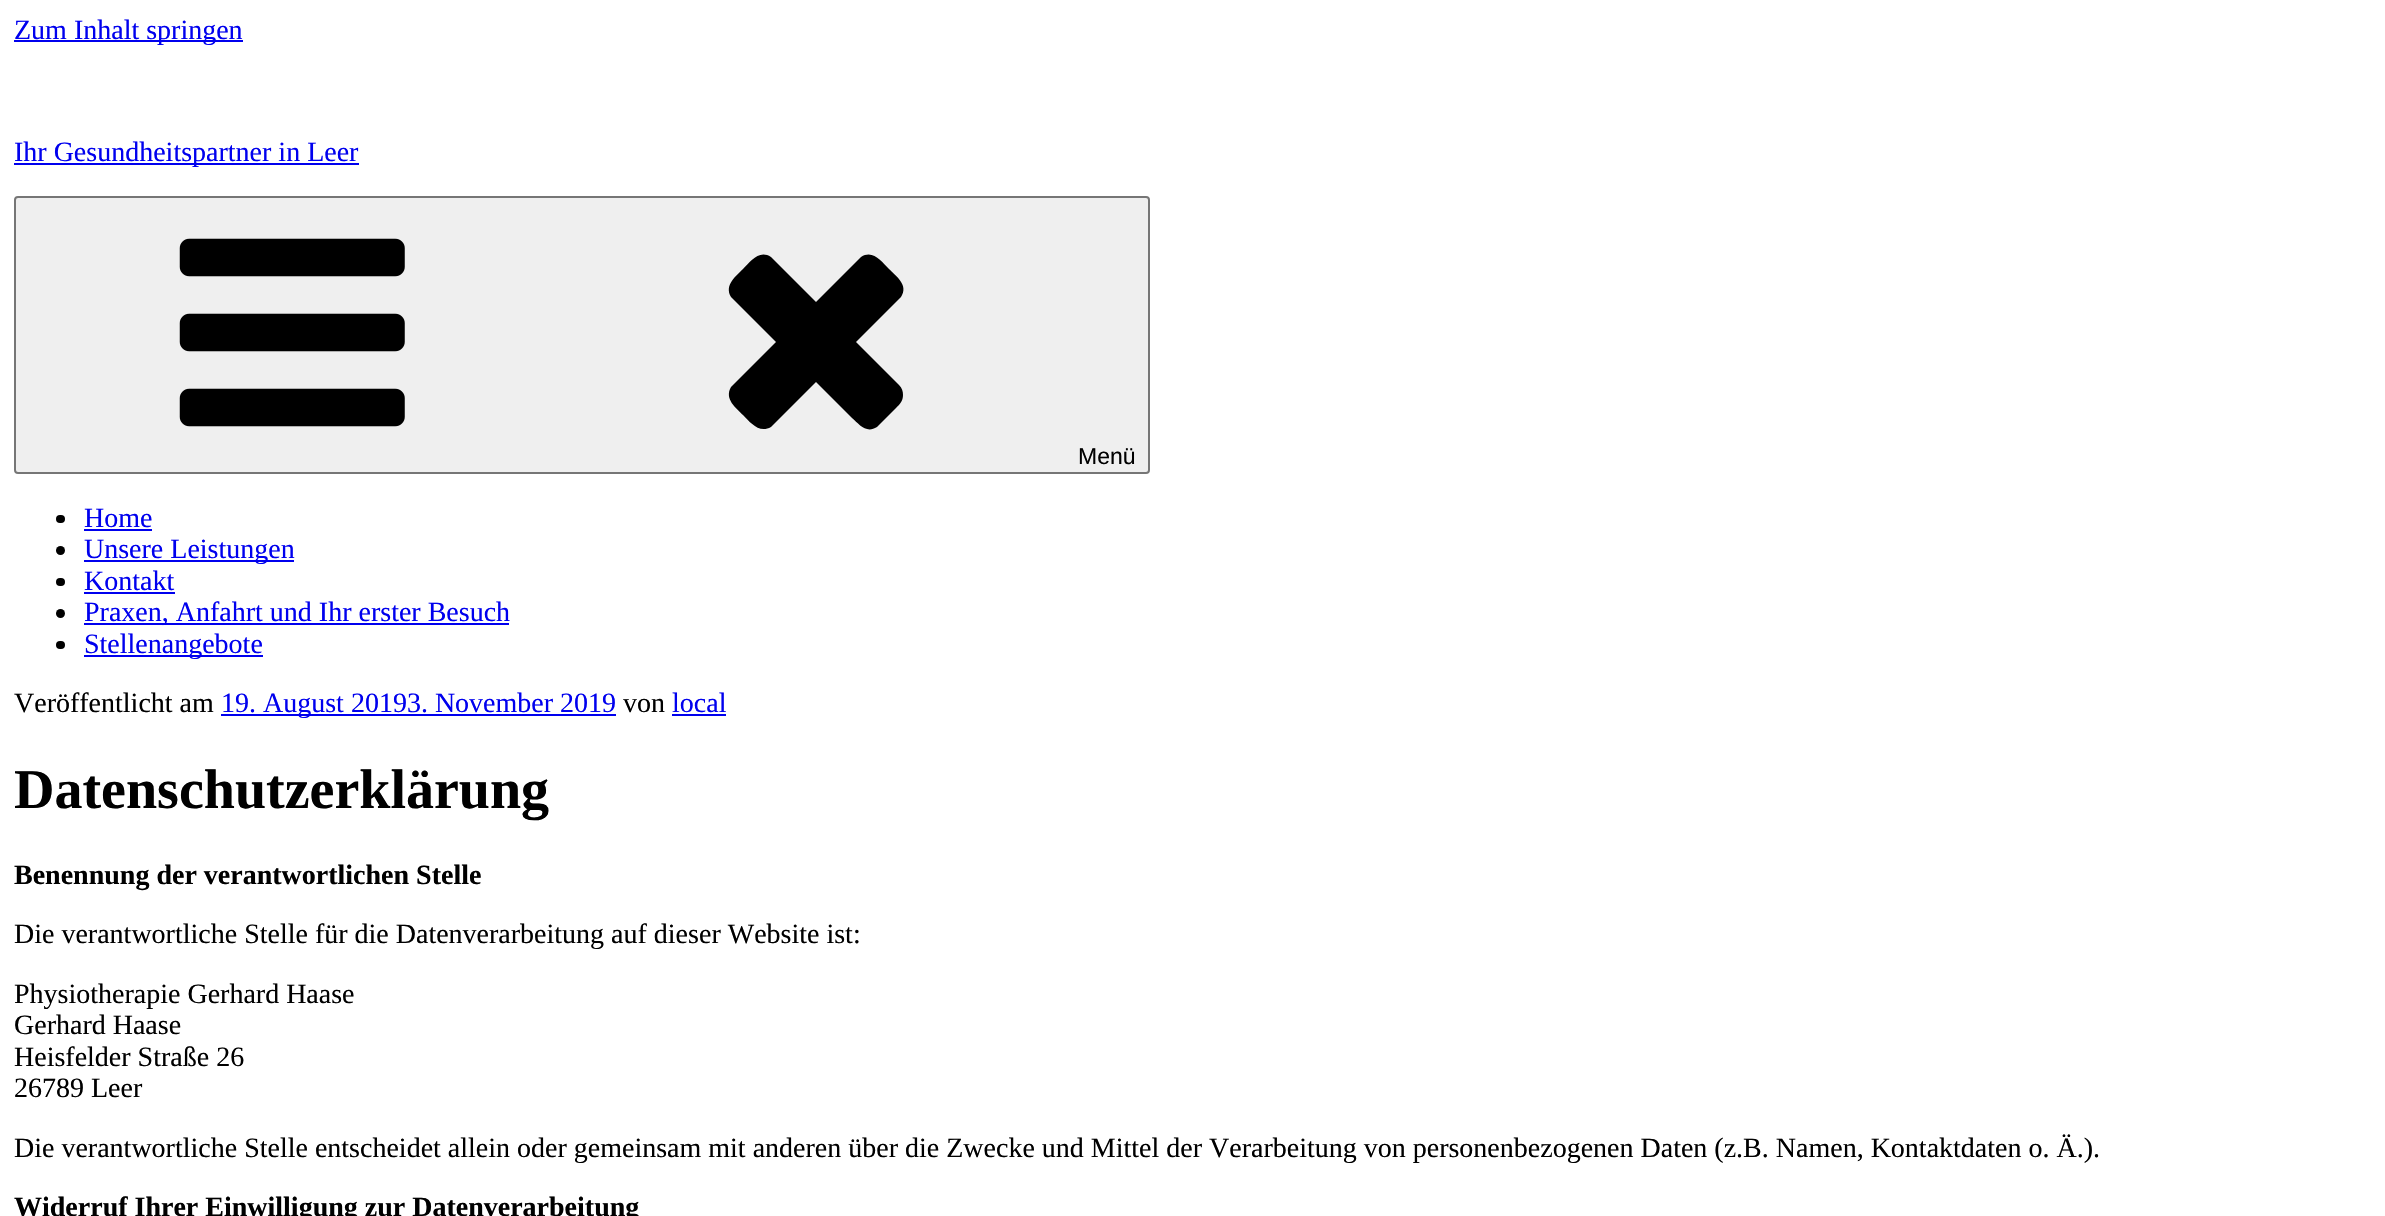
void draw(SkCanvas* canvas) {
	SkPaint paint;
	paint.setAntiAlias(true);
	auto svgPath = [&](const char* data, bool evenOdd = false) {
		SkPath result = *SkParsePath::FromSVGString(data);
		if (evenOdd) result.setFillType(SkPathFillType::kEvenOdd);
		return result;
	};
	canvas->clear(0xffffffff);
	paint.setColor(0xff0000ee);
	canvas->drawRect(SkRect::MakeXYWH(14, 40, 229, 2), paint);
	SkFont f1(fontMgr->matchFamilyStyle("Liberation Serif", SkFontStyle::Normal()), 28);
	f1.setSubpixel(true);
	canvas->drawString("Zum Inhalt springen", 14, 39, f1, paint);
	canvas->drawRect(SkRect::MakeXYWH(14, 163, 345, 2), paint);
	canvas->drawString("Ihr Gesundheitspartner in Leer", 14, 161, f1, paint);
	paint.setColor(0xffefefef);
	canvas->drawRoundRect(SkRect::MakeXYWH(15, 197, 1134, 276), 3, 3, paint);
	paint.setStroke(true);
	paint.setStrokeWidth(2);
	paint.setColor(0xff767676);
	canvas->drawRoundRect(SkRect::MakeXYWH(15, 197, 1134, 276), 3, 3, paint);
	canvas->drawImageRect(SkImages::DeferredFromEncodedData(SkData::MakeFromFileName("img1.png")), SkRect::MakeXYWH(179, 238, 226, 189), SkSamplingOptions());
	paint.setStroke(false);
	paint.setColor(0xff000000);
	canvas->drawPath(svgPath("M903 395C903 401 900 404 896 408L877 427C866 434 859 424 852 418L816 382L771 427C759 434 750 422 743 415C736 408 724 399 731 387L776 342L731 297C724 285 736 276 743 269C750 262 759 249 771 257L816 302L861 257C873 249 882 262 889 269C896 276 909 285 901 297L856 342L899 385C902 388 903 391 903 395Z"), paint);
	SkFont f2(fontMgr->matchFamilyStyle("Liberation Sans", SkFontStyle::Normal()), 23);
	f2.setSubpixel(true);
	canvas->drawString("Menü", 1078, 464, f2, paint);
	canvas->drawRoundRect(SkRect::MakeXYWH(56, 515, 9, 8), 4, 4, paint);
	paint.setColor(0xff0000ee);
	canvas->drawString("Home", 84, 527, f1, paint);
	canvas->drawRect(SkRect::MakeXYWH(84, 529, 68, 2), paint);
	paint.setColor(0xff000000);
	canvas->drawCircle(60.5, 550.5, 4.5, paint);
	paint.setColor(0xff0000ee);
	canvas->drawRect(SkRect::MakeXYWH(84, 560, 210, 2), paint);
	canvas->drawString("Unsere Leistungen", 84, 558, f1, paint);
	paint.setColor(0xff000000);
	canvas->drawRoundRect(SkRect::MakeXYWH(56, 578, 9, 8), 4, 4, paint);
	paint.setColor(0xff0000ee);
	canvas->drawString("Kontakt", 84, 590, f1, paint);
	canvas->drawRect(SkRect::MakeXYWH(84, 592, 91, 2), paint);
	paint.setColor(0xff000000);
	canvas->drawCircle(60.5, 613.5, 4.5, paint);
	paint.setColor(0xff0000ee);
	canvas->drawRect(SkRect::MakeXYWH(84, 623, 425, 2), paint);
	canvas->drawString("Praxen, Anfahrt und Ihr erster Besuch", 84, 621, f1, paint);
	paint.setColor(0xff000000);
	canvas->drawRoundRect(SkRect::MakeXYWH(56, 641, 9, 8), 4, 4, paint);
	paint.setColor(0xff0000ee);
	canvas->drawRect(SkRect::MakeXYWH(84, 655, 179, 2), paint);
	canvas->drawString("Stellenangebote", 84, 653, f1, paint);
	paint.setColor(0xff000000);
	canvas->drawString("Veröffentlicht am", 14, 712, f1, paint);
	paint.setColor(0xff0000ee);
	canvas->drawRect(SkRect::MakeXYWH(221, 714, 395, 2), paint);
	canvas->drawString("19. August 20193. November 2019", 221, 712, f1, paint);
	paint.setColor(0xff000000);
	canvas->drawString("von", 623, 712, f1, paint);
	paint.setColor(0xff0000ee);
	canvas->drawString("local", 672, 712, f1, paint);
	canvas->drawRect(SkRect::MakeXYWH(672, 714, 54, 2), paint);
	SkFont f3(fontMgr->matchFamilyStyle("Liberation Serif", SkFontStyle::Bold()), 56);
	f3.setSubpixel(true);
	paint.setColor(0xff000000);
	canvas->drawString("Datenschutzerklärung", 14, 808, f3, paint);
	SkFont f4(fontMgr->matchFamilyStyle("Liberation Serif", SkFontStyle::Bold()), 28);
	f4.setSubpixel(true);
	canvas->drawString("Benennung der verantwortlichen Stelle", 14, 884, f4, paint);
	canvas->drawString("Die verantwortliche Stelle für die Datenverarbeitung auf dieser Website ist:", 14, 943, f1, paint);
	canvas->drawString("Physiotherapie Gerhard Haase", 14, 1003, f1, paint);
	canvas->drawString("Gerhard Haase", 14, 1034, f1, paint);
	canvas->drawString("Heisfelder Straße 26", 14, 1066, f1, paint);
	canvas->drawString("26789 Leer", 14, 1097, f1, paint);
	canvas->drawString("Die verantwortliche Stelle entscheidet allein oder gemeinsam mit anderen über die Zwecke und Mittel der Verarbeitung von personenbezogenen Daten (z.B. Namen, Kontaktdaten o. Ä.).", 14, 1157, f1, paint);
	canvas->drawString("Widerruf Ihrer Einwilligung zur Datenverarbeitung", 14, 1216, f4, paint);
}
